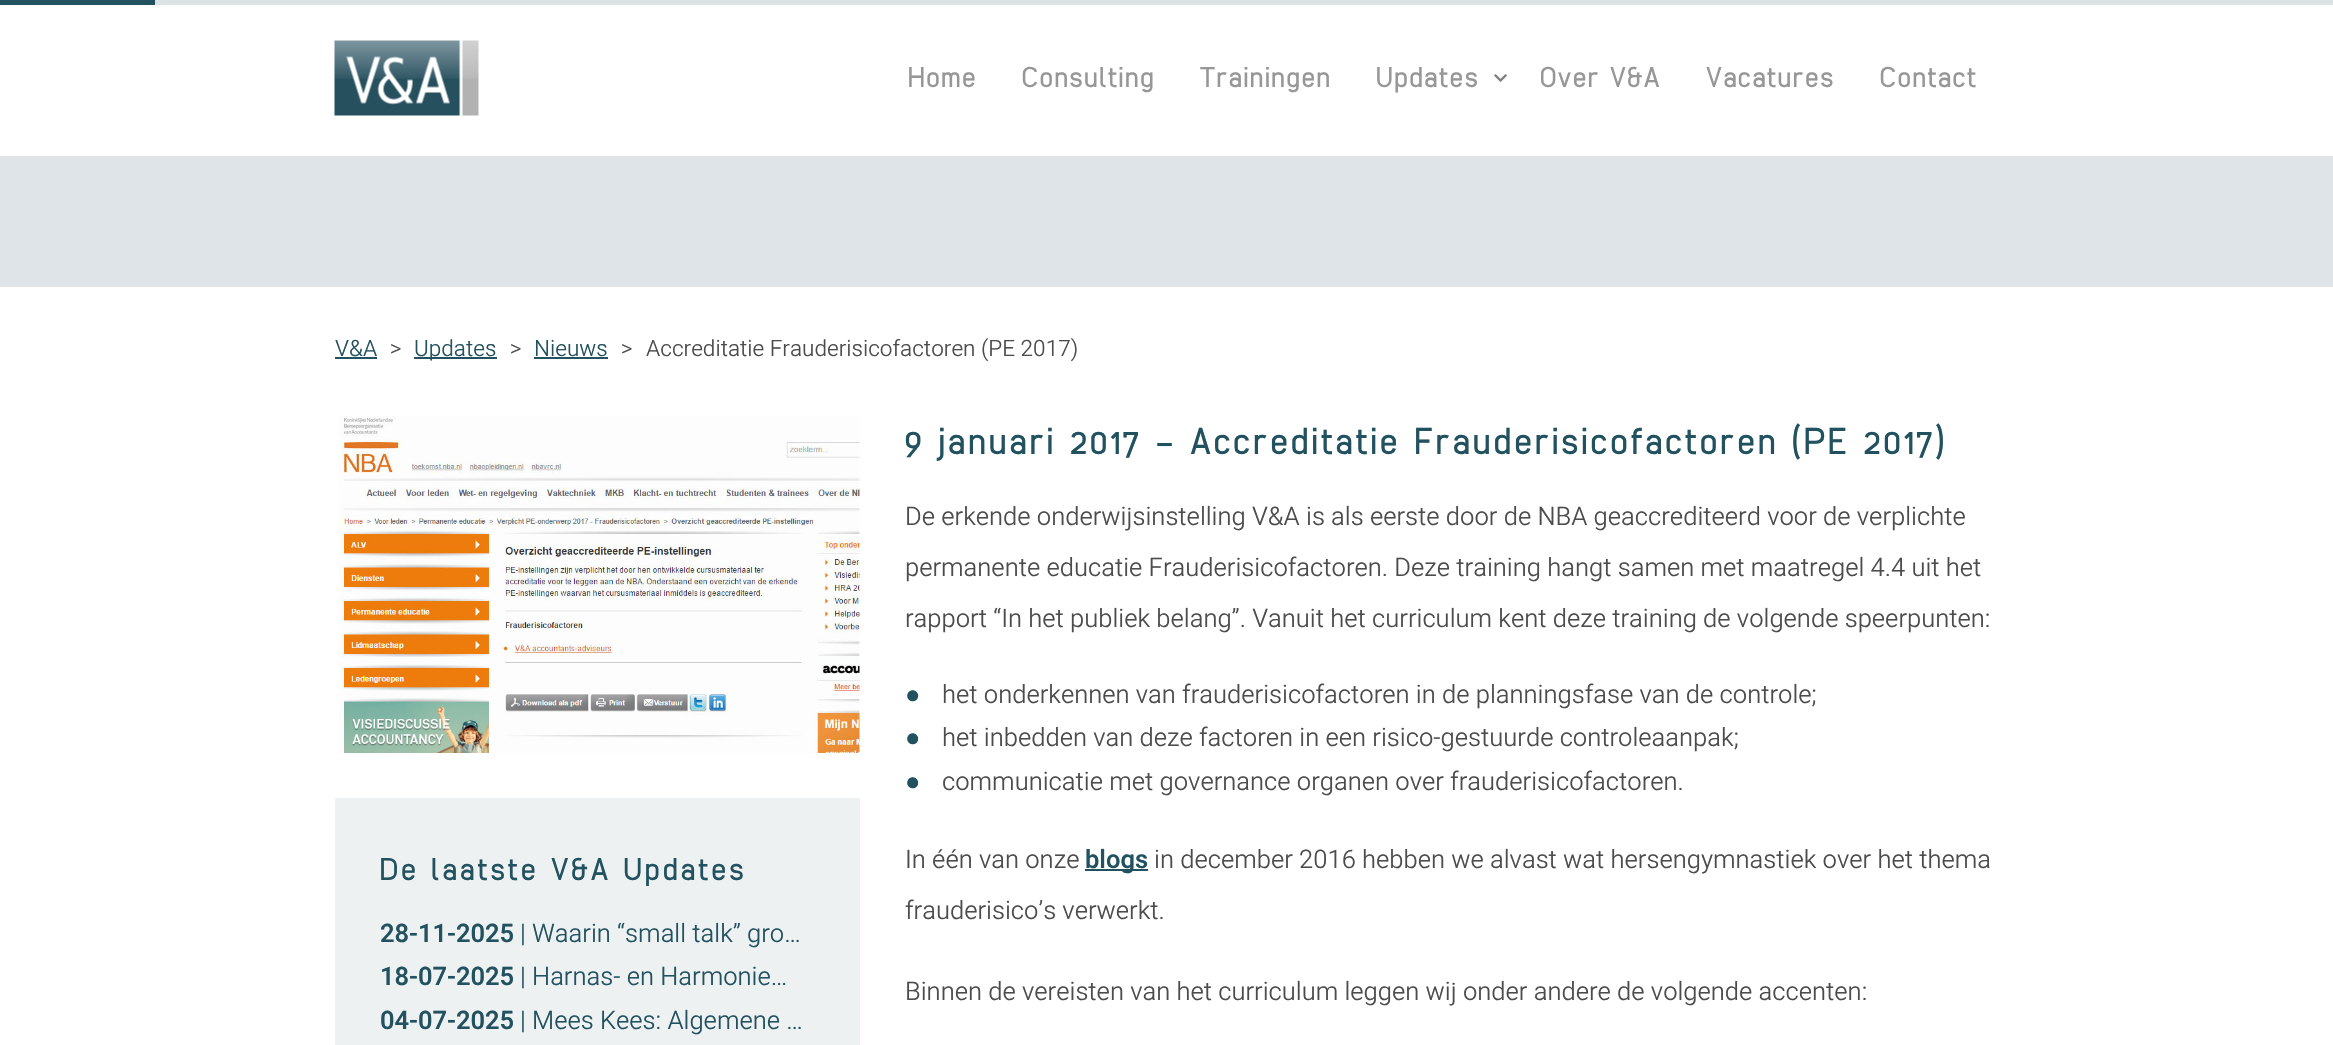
void draw(SkCanvas* canvas) {
	SkPaint paint;
	paint.setAntiAlias(true);
	auto spacedText = [&](const char* s, float x, float y, const SkFont& font, const SkPaint& ink, float letter, float word) {
		std::vector<SkGlyphID> glyphs(font.countText(s, strlen(s), SkTextEncoding::kUTF8));
		std::vector<float> xs(glyphs.size());
		font.textToGlyphs(s, strlen(s), SkTextEncoding::kUTF8, glyphs);
		font.getXPos(glyphs, xs, x);
		float extra = 0;
		for (size_t i = 0; i < glyphs.size(); i++) {
			xs[i] += extra;
			extra += letter + word * (glyphs[i] == font.unicharToGlyph(' '));
		}
		canvas->drawTextBlob(SkTextBlob::MakeFromPosHGlyphs(glyphs, xs, y, font), 0, 0, ink);
	};
	canvas->clear(0xffffffff);
	paint.setColor(0xff22515f);
	canvas->drawRect(SkRect::MakeXYWH(0, 0, 155, 5), paint);
	paint.setColor(0xffdce3e5);
	canvas->drawRect(SkRect::MakeXYWH(155, 0, 2178, 5), paint);
	canvas->drawImageRect(SkImages::DeferredFromEncodedData(SkData::MakeFromFileName("img1.png")), SkRect::MakeXYWH(334, 40, 145, 76), SkSamplingOptions());
	SkFont f1(fontMgr->matchFamilyStyle("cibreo", SkFontStyle::Normal()), 30);
	f1.setSubpixel(true);
	paint.setColor(0xff979797);
	spacedText("Home", 908, 87, f1, paint, 1.5, 0);
	spacedText("Consulting", 1022, 87, f1, paint, 1.5, 0);
	spacedText("Trainingen", 1200, 87, f1, paint, 1.5, 0);
	spacedText("Updates", 1376, 87, f1, paint, 1.5, 0);
	canvas->drawImageRect(SkImages::DeferredFromEncodedData(SkData::MakeFromFileName("img2.png")), SkRect::MakeXYWH(1494, 74, 13, 8), SkSamplingOptions());
	spacedText("Over V&A", 1540, 87, f1, paint, 1.5, 0);
	spacedText("Vacatures", 1706, 87, f1, paint, 1.5, 0);
	spacedText("Contact", 1880, 87, f1, paint, 1.5, 0);
	paint.setColor(0xffdee4e7);
	canvas->drawRect(SkRect::MakeXYWH(0, 156, 2333, 131), paint);
	SkFont f2(fontMgr->matchFamilyStyle("Heebo", SkFontStyle(300, SkFontStyle::kNormal_Width, SkFontStyle::kUpright_Slant)), 22.5);
	f2.setSubpixel(true);
	paint.setColor(0xff22515f);
	canvas->drawString("V&A", 335, 356, f2, paint);
	canvas->drawRect(SkRect::MakeXYWH(335, 357, 42, 2), paint);
	paint.setColor(0xff4c4c4c);
	canvas->drawString(">", 390, 356, f2, paint);
	paint.setColor(0xff22515f);
	canvas->drawRect(SkRect::MakeXYWH(414, 357, 83, 2), paint);
	canvas->drawString("Updates", 414, 356, f2, paint);
	paint.setColor(0xff4c4c4c);
	canvas->drawString(">", 510, 356, f2, paint);
	paint.setColor(0xff22515f);
	canvas->drawString("Nieuws", 534, 356, f2, paint);
	canvas->drawRect(SkRect::MakeXYWH(534, 357, 74, 2), paint);
	paint.setColor(0xff4c4c4c);
	canvas->drawString(">", 621, 356, f2, paint);
	canvas->drawString("Accreditatie Frauderisicofactoren (PE 2017)", 646, 356, f2, paint);
	canvas->drawImageRect(SkImages::DeferredFromEncodedData(SkData::MakeFromFileName("img3.png")), SkRect::MakeXYWH(339, 416, 521, 337), SkSamplingOptions());
	paint.setColor(0xffeef1f2);
	canvas->drawRect(SkRect::MakeXYWH(335, 798, 525, 247), paint);
	SkFont f3(fontMgr->matchFamilyStyle("cibreo", SkFontStyle::Normal()), 33);
	f3.setSubpixel(true);
	paint.setColor(0xff22515f);
	spacedText("De laatste V&A Updates", 380, 880, f3, paint, 3, 0);
	SkFont f4(fontMgr->matchFamilyStyle("Heebo", SkFontStyle(600, SkFontStyle::kNormal_Width, SkFontStyle::kUpright_Slant)), 25.5);
	f4.setSubpixel(true);
	canvas->drawString("28-11-2025", 380, 942, f4, paint);
	SkFont f5(fontMgr->matchFamilyStyle("Heebo", SkFontStyle(300, SkFontStyle::kNormal_Width, SkFontStyle::kUpright_Slant)), 25.5);
	f5.setSubpixel(true);
	canvas->drawString("| Waarin “small talk” gro…", 520, 942, f5, paint);
	canvas->drawString("18-07-2025", 380, 985, f4, paint);
	canvas->drawString("| Harnas- en Harmonie…", 520, 985, f5, paint);
	canvas->drawString("04-07-2025", 380, 1029, f4, paint);
	canvas->drawString("| Mees Kees: Algemene …", 520, 1029, f5, paint);
	SkFont f6(fontMgr->matchFamilyStyle("cibreo", SkFontStyle::Normal()), 39);
	f6.setSubpixel(true);
	spacedText("9 januari 2017 - Accreditatie Frauderisicofactoren (PE 2017)", 905, 454, f6, paint, 3, 0);
	paint.setColor(0xff4c4c4c);
	canvas->drawString("De erkende onderwijsinstelling V&A is als eerste door de NBA geaccrediteerd voor de verplichte", 905, 525, f5, paint);
	canvas->drawString("permanente educatie Frauderisicofactoren. Deze training hangt samen met maatregel 4.4 uit het", 905, 576, f5, paint);
	canvas->drawString("rapport “In het publiek belang”. Vanuit het curriculum kent deze training de volgende speerpunten:", 905, 627, f5, paint);
	SkFont f7(fontMgr->matchFamilyStyle("Liberation Sans", SkFontStyle::Normal()), 25.5);
	f7.setSubpixel(true);
	paint.setColor(0xff22515f);
	canvas->drawString("●", 905, 703, f7, paint);
	paint.setColor(0xff4c4c4c);
	canvas->drawString("het onderkennen van frauderisicofactoren in de planningsfase van de controle;", 942, 703, f5, paint);
	paint.setColor(0xff22515f);
	canvas->drawString("●", 905, 746, f7, paint);
	paint.setColor(0xff4c4c4c);
	canvas->drawString("het inbedden van deze factoren in een risico-gestuurde controleaanpak;", 942, 746, f5, paint);
	paint.setColor(0xff22515f);
	canvas->drawString("●", 905, 790, f7, paint);
	paint.setColor(0xff4c4c4c);
	canvas->drawString("communicatie met governance organen over frauderisicofactoren.", 942, 790, f5, paint);
	canvas->drawString("In één van onze", 905, 868, f5, paint);
	paint.setColor(0xff22515f);
	canvas->drawRect(SkRect::MakeXYWH(1085, 869, 63, 2), paint);
	canvas->drawString("blogs", 1085, 868, f4, paint);
	paint.setColor(0xff4c4c4c);
	canvas->drawString("in december 2016 hebben we alvast wat hersengymnastiek over het thema", 1154, 868, f5, paint);
	canvas->drawString("frauderisico’s verwerkt.", 905, 919, f5, paint);
	canvas->drawString("Binnen de vereisten van het curriculum leggen wij onder andere de volgende accenten:", 905, 1000, f5, paint);
}
